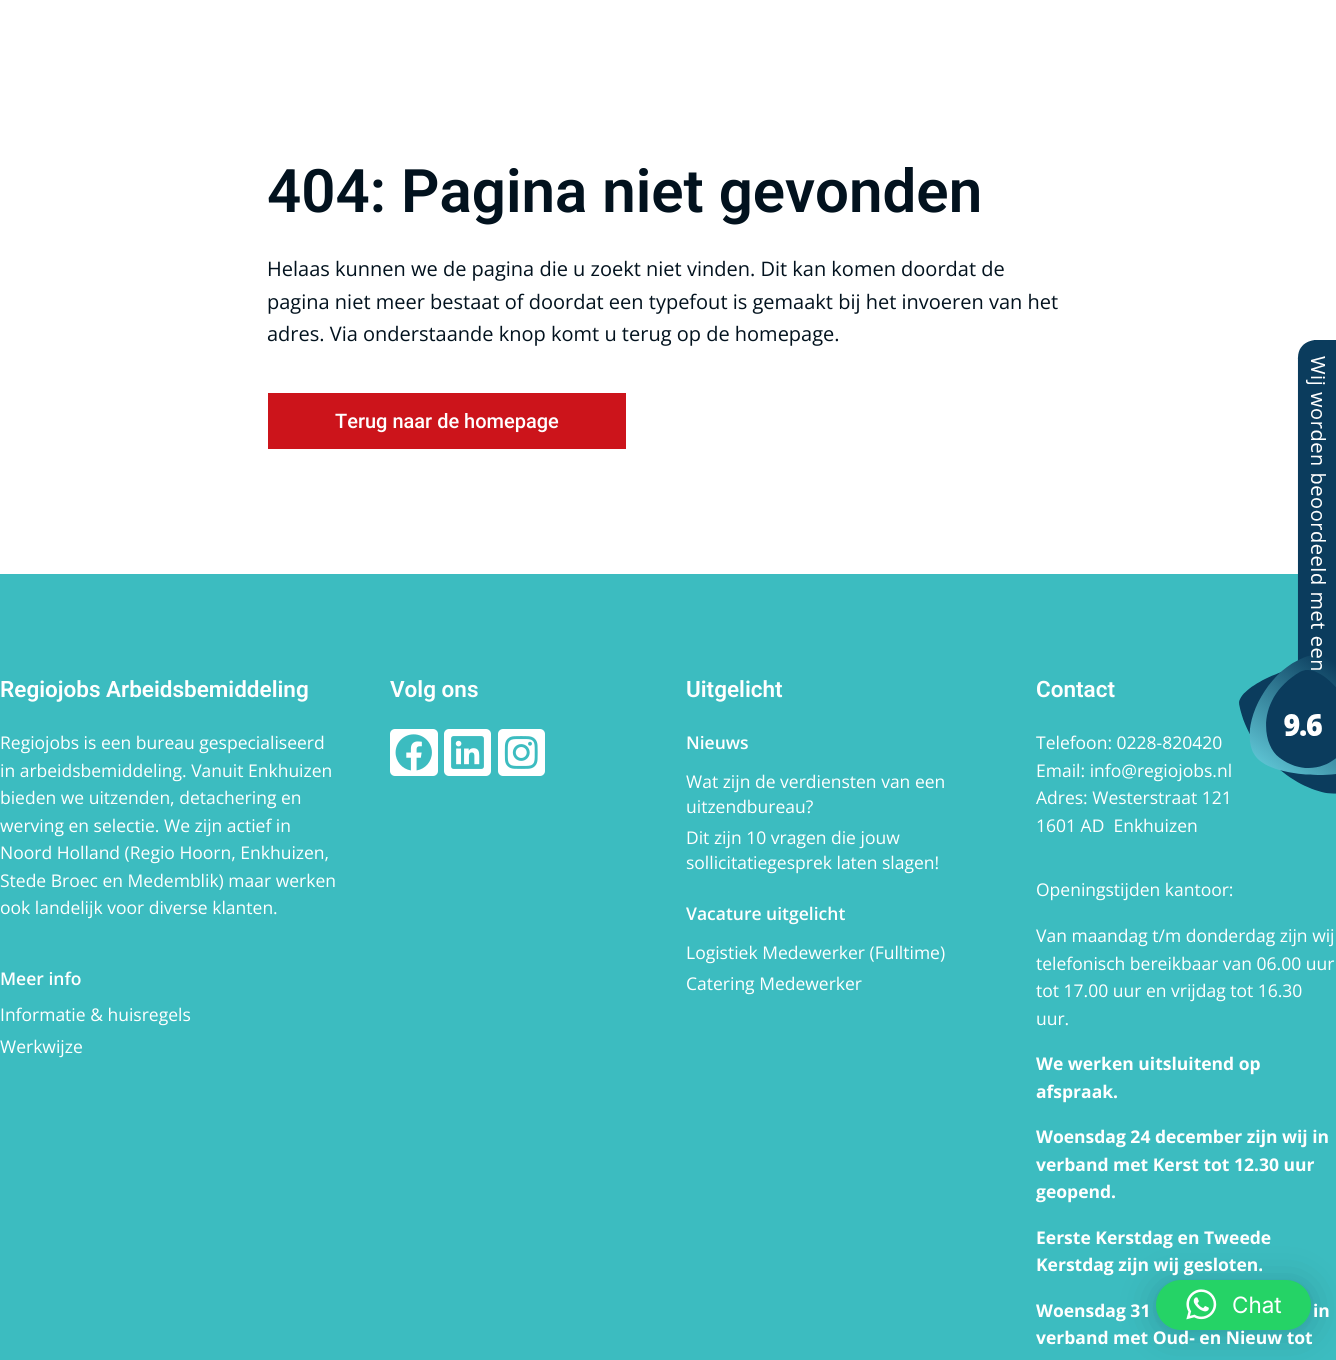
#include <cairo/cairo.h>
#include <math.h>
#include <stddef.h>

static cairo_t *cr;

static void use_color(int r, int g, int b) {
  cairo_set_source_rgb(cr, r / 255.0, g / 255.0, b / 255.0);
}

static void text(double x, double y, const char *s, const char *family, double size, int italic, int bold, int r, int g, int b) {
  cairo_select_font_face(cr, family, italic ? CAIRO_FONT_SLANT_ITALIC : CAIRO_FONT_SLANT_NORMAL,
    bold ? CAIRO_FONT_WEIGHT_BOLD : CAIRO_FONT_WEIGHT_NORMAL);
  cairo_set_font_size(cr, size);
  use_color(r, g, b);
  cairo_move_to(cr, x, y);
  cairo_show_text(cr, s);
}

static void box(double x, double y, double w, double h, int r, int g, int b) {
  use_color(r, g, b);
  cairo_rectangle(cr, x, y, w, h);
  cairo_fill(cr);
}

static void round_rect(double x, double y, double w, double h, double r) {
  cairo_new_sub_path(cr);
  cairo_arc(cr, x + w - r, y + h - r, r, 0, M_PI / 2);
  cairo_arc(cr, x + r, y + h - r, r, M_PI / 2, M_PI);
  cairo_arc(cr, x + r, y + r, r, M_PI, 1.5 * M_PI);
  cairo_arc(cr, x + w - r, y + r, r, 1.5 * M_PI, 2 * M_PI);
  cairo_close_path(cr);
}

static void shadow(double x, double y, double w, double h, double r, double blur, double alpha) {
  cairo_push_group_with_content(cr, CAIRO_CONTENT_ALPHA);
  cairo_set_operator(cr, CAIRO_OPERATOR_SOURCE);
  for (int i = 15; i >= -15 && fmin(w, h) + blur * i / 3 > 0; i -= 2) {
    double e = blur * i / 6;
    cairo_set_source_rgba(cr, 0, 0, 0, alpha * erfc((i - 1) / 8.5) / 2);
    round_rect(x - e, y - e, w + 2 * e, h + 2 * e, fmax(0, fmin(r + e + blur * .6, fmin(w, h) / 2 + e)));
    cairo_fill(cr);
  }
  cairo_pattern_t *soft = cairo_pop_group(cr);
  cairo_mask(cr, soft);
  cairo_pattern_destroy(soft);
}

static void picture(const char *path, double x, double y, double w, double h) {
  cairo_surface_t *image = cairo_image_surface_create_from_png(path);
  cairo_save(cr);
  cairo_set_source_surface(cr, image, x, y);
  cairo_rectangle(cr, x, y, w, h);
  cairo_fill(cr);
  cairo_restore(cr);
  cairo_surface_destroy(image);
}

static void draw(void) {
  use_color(255, 255, 255);
  cairo_paint(cr);
  box(268, 393, 358, 56, 204, 20, 27);
  box(0, 574, 1336, 786, 60, 188, 192);
  picture("img_01.png", 1239, 340, 97, 454);
  use_color(255, 255, 255);
  round_rect(390, 729, 48, 47, 5);
  cairo_fill(cr);
  picture("img_02.png", 395, 734, 37, 37);
  round_rect(444, 729, 47, 47, 5);
  cairo_fill(cr);
  picture("img_03.png", 451, 736, 33, 33);
  round_rect(498, 729, 47, 47, 5);
  cairo_fill(cr);
  picture("img_04.png", 504, 736, 34, 33);
  use_color(0, 0, 0);
  shadow(1156, 1283, 155, 50, 25, 20, 0.16);
  shadow(1156, 1281, 155, 50, 25, 4, 0.06);
  use_color(37, 211, 102);
  round_rect(1156, 1280, 155, 50, 25);
  cairo_fill(cr);
  picture("img_05.png", 1186, 1289, 31, 31);
  text(267, 212, "404: Pagina niet gevonden", "Roboto SemiBold", 60, 0, 0, 2, 18, 30);
  text(267, 276, "Helaas kunnen we de pagina die u zoekt niet vinden. Dit kan komen doordat de", "Open Sans", 20, 0, 0, 2, 18, 30);
  text(267, 309, "pagina niet meer bestaat of doordat een typefout is gemaakt bij het invoeren van het", "Open Sans", 20, 0, 0, 2, 18, 30);
  text(267, 341, "adres. Via onderstaande knop komt u terug op de homepage.", "Open Sans", 20, 0, 0, 2, 18, 30);
  text(335, 428, "Terug naar de homepage", "Roboto Medium", 20, 0, 0, 255, 255, 255);
  text(0, 697, "Regiojobs Arbeidsbemiddeling", "Roboto SemiBold", 22.5, 0, 0, 255, 255, 255);
  text(0, 749, "Regiojobs is een bureau gespecialiseerd", "Open Sans", 17.5, 0, 0, 255, 255, 255);
  text(0, 777, "in arbeidsbemiddeling. Vanuit Enkhuizen", "Open Sans", 17.5, 0, 0, 255, 255, 255);
  text(0, 804, "bieden we uitzenden, detachering en", "Open Sans", 17.5, 0, 0, 255, 255, 255);
  text(0, 832, "werving en selectie. We zijn actief in", "Open Sans", 17.5, 0, 0, 255, 255, 255);
  text(0, 859, "Noord Holland (Regio Hoorn, Enkhuizen,", "Open Sans", 17.5, 0, 0, 255, 255, 255);
  text(0, 887, "Stede Broec en Medemblik) maar werken", "Open Sans", 17.5, 0, 0, 255, 255, 255);
  text(0, 914, "ook landelijk voor diverse klanten.", "Open Sans", 17.5, 0, 0, 255, 255, 255);
  text(0, 985, "Meer info", "Open Sans SemiBold", 17.5, 0, 0, 255, 255, 255);
  text(0, 1021, "Informatie & huisregels", "Open Sans", 17.5, 0, 0, 255, 255, 255);
  text(0, 1053, "Werkwijze", "Open Sans", 17.5, 0, 0, 255, 255, 255);
  text(390, 697, "Volg ons", "Roboto SemiBold", 22.5, 0, 0, 255, 255, 255);
  text(686, 697, "Uitgelicht", "Roboto SemiBold", 22.5, 0, 0, 255, 255, 255);
  text(686, 749, "Nieuws", "Open Sans SemiBold", 17.5, 0, 0, 255, 255, 255);
  text(686, 788, "Wat zijn de verdiensten van een", "Open Sans", 17.5, 0, 0, 255, 255, 255);
  text(686, 813, "uitzendbureau?", "Open Sans", 17.5, 0, 0, 255, 255, 255);
  text(686, 844, "Dit zijn 10 vragen die jouw", "Open Sans", 17.5, 0, 0, 255, 255, 255);
  text(686, 869, "sollicitatiegesprek laten slagen!", "Open Sans", 17.5, 0, 0, 255, 255, 255);
  text(686, 920, "Vacature uitgelicht", "Open Sans SemiBold", 17.5, 0, 0, 255, 255, 255);
  text(686, 959, "Logistiek Medewerker (Fulltime)", "Open Sans", 17.5, 0, 0, 255, 255, 255);
  text(686, 990, "Catering Medewerker", "Open Sans", 17.5, 0, 0, 255, 255, 255);
  text(1036, 697, "Contact", "Roboto SemiBold", 22.5, 0, 0, 255, 255, 255);
  text(1036, 749, "Telefoon: 0228-820420", "Open Sans", 17.5, 0, 0, 255, 255, 255);
  text(1036, 777, "Email: info@regiojobs.nl", "Open Sans", 17.5, 0, 0, 255, 255, 255);
  text(1036, 804, "Adres: Westerstraat 121", "Open Sans", 17.5, 0, 0, 255, 255, 255);
  text(1036, 832, "1601 AD  Enkhuizen", "Open Sans", 17.5, 0, 0, 255, 255, 255);
  text(1036, 896, "Openingstijden kantoor:", "Open Sans", 17.5, 0, 0, 255, 255, 255);
  text(1036, 942, "Van maandag t/m donderdag zijn wij", "Open Sans", 17.5, 0, 0, 255, 255, 255);
  text(1036, 970, "telefonisch bereikbaar van 06.00 uur", "Open Sans", 17.5, 0, 0, 255, 255, 255);
  text(1036, 997, "tot 17.00 uur en vrijdag tot 16.30", "Open Sans", 17.5, 0, 0, 255, 255, 255);
  text(1036, 1025, "uur.", "Open Sans", 17.5, 0, 0, 255, 255, 255);
  text(1036, 1070, "We werken uitsluitend op", "Open Sans", 17.5, 0, 1, 255, 255, 255);
  text(1036, 1098, "afspraak.", "Open Sans", 17.5, 0, 1, 255, 255, 255);
  text(1036, 1143, "Woensdag 24 december zijn wij in", "Open Sans", 17.5, 0, 1, 255, 255, 255);
  text(1036, 1171, "verband met Kerst tot 12.30 uur", "Open Sans", 17.5, 0, 1, 255, 255, 255);
  text(1036, 1198, "geopend.", "Open Sans", 17.5, 0, 1, 255, 255, 255);
  text(1036, 1244, "Eerste Kerstdag en Tweede", "Open Sans", 17.5, 0, 1, 255, 255, 255);
  text(1036, 1271, "Kerstdag zijn wij gesloten.", "Open Sans", 17.5, 0, 1, 255, 255, 255);
  text(1036, 1317, "Woensdag 31", "Open Sans", 17.5, 0, 1, 255, 255, 255);
  text(1313, 1317, "in", "Open Sans", 17.5, 0, 1, 255, 255, 255);
  text(1036, 1344, "verband met Oud- en Nieuw tot", "Open Sans", 17.5, 0, 1, 255, 255, 255);
  text(1232, 1313, "Chat", "Inter", 22.5, 0, 0, 255, 255, 255);
}

int main(void) {
  cairo_surface_t *surface = cairo_image_surface_create(CAIRO_FORMAT_RGB24, 1336, 1360);
  cr = cairo_create(surface);
  cairo_font_options_t *options = cairo_font_options_create();
  cairo_font_options_set_hint_metrics(options, CAIRO_HINT_METRICS_OFF);
  cairo_font_options_set_hint_style(options, CAIRO_HINT_STYLE_NONE);
  cairo_set_font_options(cr, options);
  cairo_set_miter_limit(cr, 4);
  draw();
  cairo_surface_write_to_png(surface, "out.png");
  cairo_font_options_destroy(options);
  cairo_destroy(cr);
  cairo_surface_destroy(surface);
  return 0;
}
